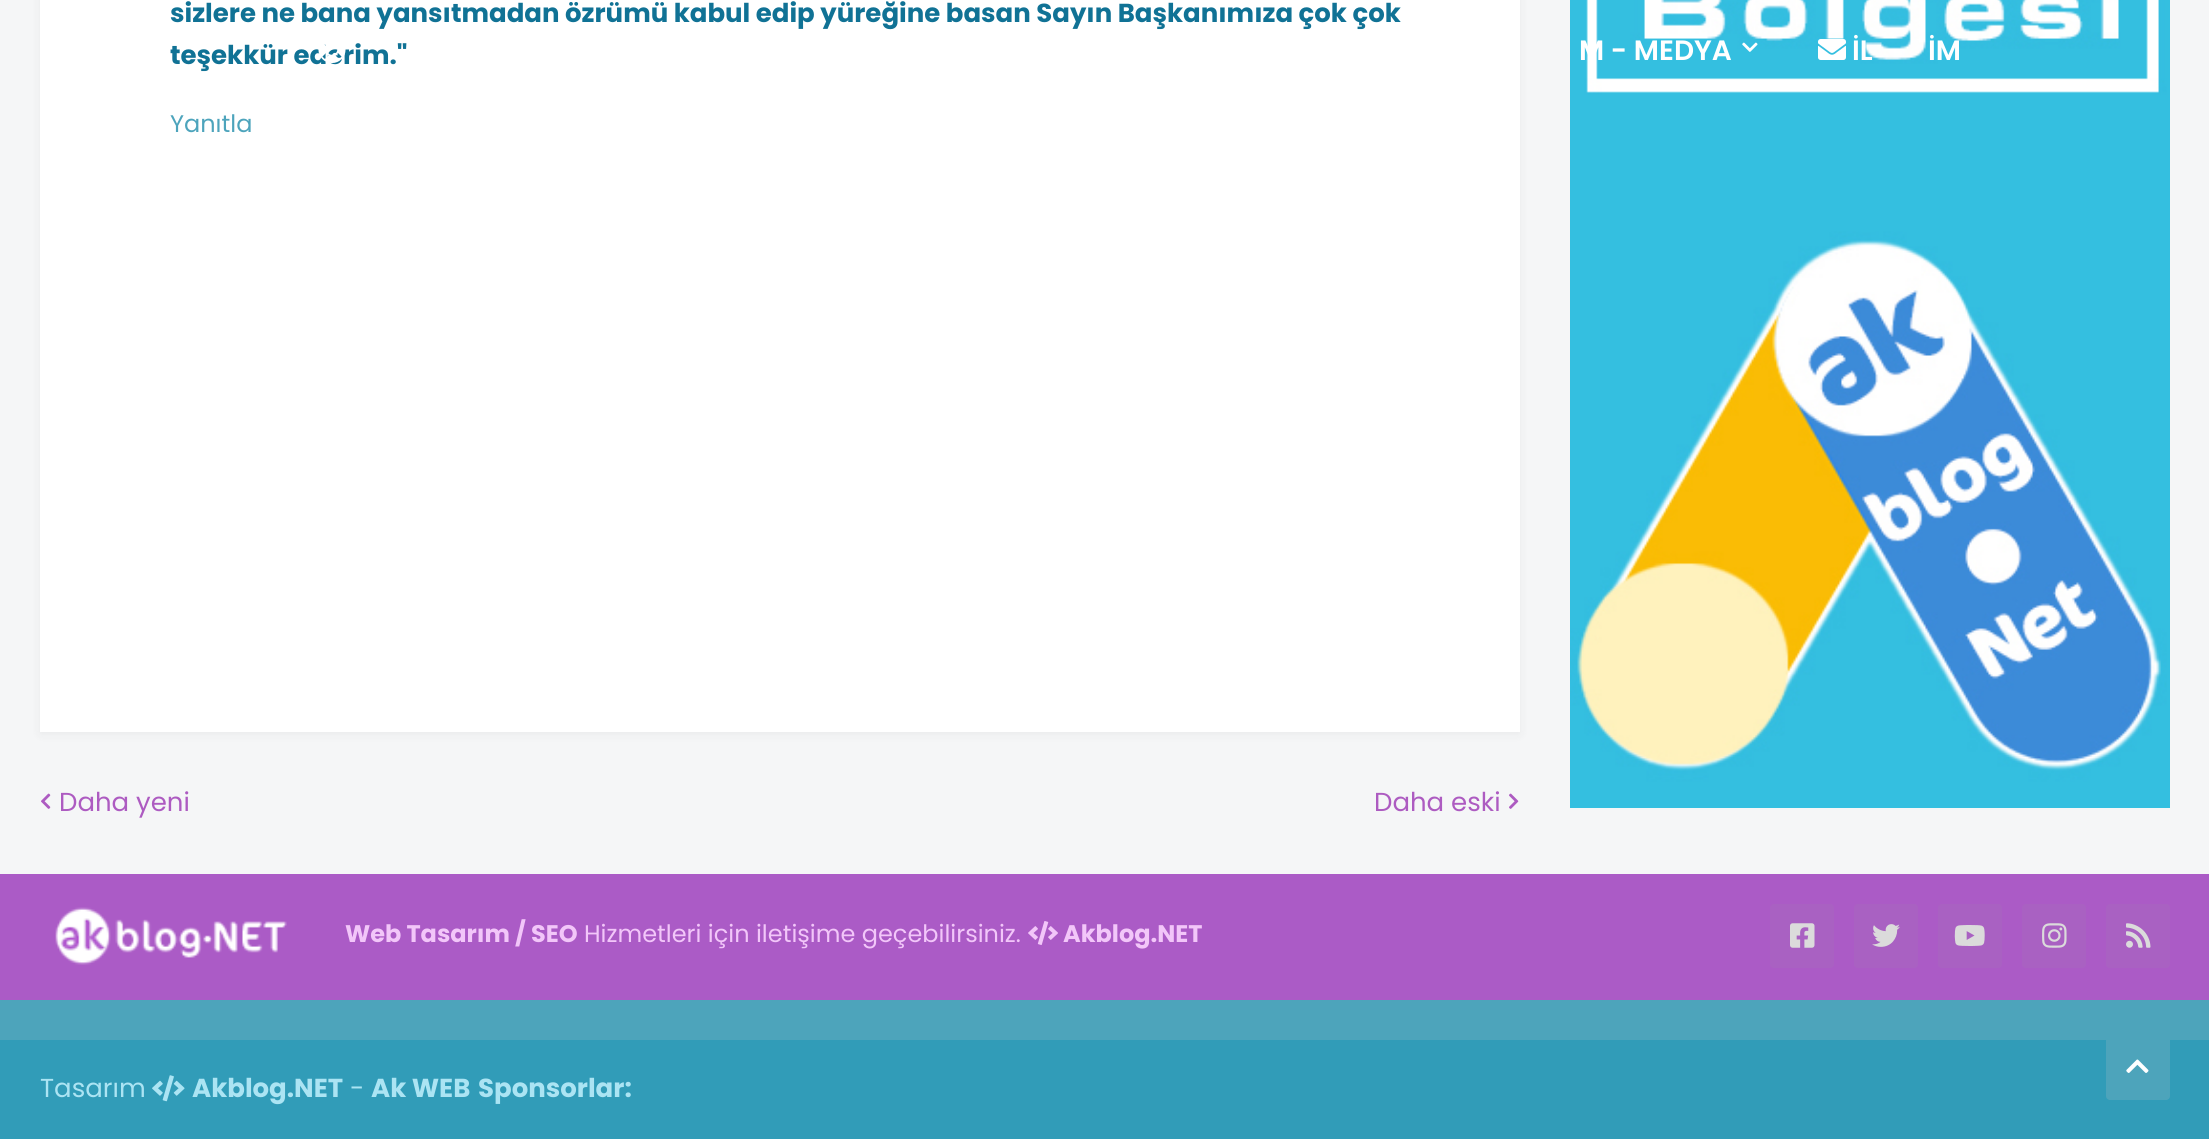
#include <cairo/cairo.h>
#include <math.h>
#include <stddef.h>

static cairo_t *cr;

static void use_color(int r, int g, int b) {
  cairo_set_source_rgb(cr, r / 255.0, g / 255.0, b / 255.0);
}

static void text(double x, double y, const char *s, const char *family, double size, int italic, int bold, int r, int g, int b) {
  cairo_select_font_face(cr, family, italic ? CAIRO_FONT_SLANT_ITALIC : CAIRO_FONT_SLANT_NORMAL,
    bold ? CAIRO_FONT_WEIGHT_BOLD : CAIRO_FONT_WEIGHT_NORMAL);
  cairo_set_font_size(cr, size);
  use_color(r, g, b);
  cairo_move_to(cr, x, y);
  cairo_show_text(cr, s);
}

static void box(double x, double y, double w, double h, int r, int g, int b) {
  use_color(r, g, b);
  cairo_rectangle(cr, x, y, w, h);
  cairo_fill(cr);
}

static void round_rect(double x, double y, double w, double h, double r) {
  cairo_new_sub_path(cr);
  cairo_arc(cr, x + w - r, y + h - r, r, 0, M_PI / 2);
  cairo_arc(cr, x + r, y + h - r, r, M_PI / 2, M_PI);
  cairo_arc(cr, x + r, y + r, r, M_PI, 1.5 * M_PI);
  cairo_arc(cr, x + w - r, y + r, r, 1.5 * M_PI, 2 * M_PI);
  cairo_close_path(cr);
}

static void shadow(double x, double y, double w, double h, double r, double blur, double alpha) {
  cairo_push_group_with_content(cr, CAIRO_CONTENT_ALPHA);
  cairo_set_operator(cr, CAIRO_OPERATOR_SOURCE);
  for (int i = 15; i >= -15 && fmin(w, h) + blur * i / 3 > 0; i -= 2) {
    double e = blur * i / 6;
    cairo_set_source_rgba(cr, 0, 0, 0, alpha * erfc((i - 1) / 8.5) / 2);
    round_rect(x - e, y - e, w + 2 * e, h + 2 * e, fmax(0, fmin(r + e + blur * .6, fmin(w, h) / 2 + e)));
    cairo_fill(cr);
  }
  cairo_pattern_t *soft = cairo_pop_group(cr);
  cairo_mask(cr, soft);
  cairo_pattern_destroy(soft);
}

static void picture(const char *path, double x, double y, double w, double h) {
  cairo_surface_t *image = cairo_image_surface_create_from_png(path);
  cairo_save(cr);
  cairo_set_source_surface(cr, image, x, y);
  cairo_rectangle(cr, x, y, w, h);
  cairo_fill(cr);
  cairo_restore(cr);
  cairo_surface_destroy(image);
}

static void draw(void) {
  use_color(245, 246, 247);
  cairo_paint(cr);
  use_color(0, 0, 0);
  shadow(40, -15, 1480, 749, 0, 5, 0.05);
  box(40, 0, 1480, 732, 255, 255, 255);
  picture("img_01.png", 41, 793, 10, 16);
  picture("img_02.png", 1509, 793, 10, 16);
  picture("img_03.png", 1570, 0, 600, 808);
  picture("img_05.png", 1742, 42, 16, 10);
  picture("img_06.png", 1818, 39, 28, 21);
  box(0, 1000, 2209, 40, 77, 164, 187);
  box(0, 874, 2209, 126, 171, 91, 198);
  picture("img_07.png", 55, 907, 232, 58);
  picture("img_08.png", 1028, 921, 30, 24);
  use_color(169, 97, 194);
  round_rect(1770, 904, 64, 64, 4);
  cairo_fill(cr);
  picture("img_09.png", 1790, 923, 25, 25);
  round_rect(1854, 904, 64, 64, 4);
  cairo_fill(cr);
  picture("img_10.png", 1872, 924, 28, 23);
  round_rect(1938, 904, 64, 64, 4);
  cairo_fill(cr);
  picture("img_11.png", 1954, 925, 31, 21);
  round_rect(2022, 904, 64, 64, 4);
  cairo_fill(cr);
  picture("img_12.png", 2042, 923, 25, 25);
  round_rect(2106, 904, 64, 64, 4);
  cairo_fill(cr);
  picture("img_13.png", 2126, 923, 25, 25);
  box(0, 1040, 2209, 99, 49, 156, 184);
  picture("img_14.png", 152, 1075, 33, 27);
  use_color(77, 164, 187);
  round_rect(2106, 1036, 64, 64, 4);
  cairo_fill(cr);
  picture("img_15.png", 2126, 1059, 23, 14);
  text(170, 22, "sizlere ne bana yansıtmadan özrümü kabul edip yüreğine basan Sayın Başkanımıza çok çok", "Poppins", 26, 0, 1, 16, 114, 149);
  text(170, 64, "teşekkür ederim.\"", "Poppins", 26, 0, 1, 16, 114, 149);
  text(170, 132, "Yanıtla", "Poppins", 24, 0, 0, 77, 164, 188);
  text(59, 811, "Daha yeni", "Poppins", 26, 0, 0, 173, 91, 193);
  text(1374, 811, "Daha eski", "Poppins", 26, 0, 0, 173, 91, 193);
  picture("img_04.png", 318, 44, 28, 19);
  text(1579, 60, "M - MEDYA", "Poppins SemiBold", 28, 0, 0, 255, 255, 255);
  text(1852, 60, "İL", "Poppins SemiBold", 28, 0, 0, 255, 255, 255);
  text(1928, 60, "İM", "Poppins SemiBold", 28, 0, 0, 255, 255, 255);
  text(345, 942, "Web Tasarım / SEO", "Poppins", 24, 0, 1, 242, 198, 249);
  text(584, 942, "Hizmetleri için iletişime geçebilirsiniz.", "Poppins", 24, 0, 0, 242, 198, 249);
  text(1063, 942, "Akblog.NET", "Poppins", 24, 0, 1, 242, 198, 249);
  text(40, 1097, "Tasarım", "Poppins", 26, 0, 0, 171, 228, 243);
  text(192, 1097, "Akblog.NET", "Poppins", 26, 0, 1, 171, 228, 243);
  text(350, 1097, "-", "Poppins", 26, 0, 0, 171, 228, 243);
  text(371, 1097, "Ak WEB", "Poppins", 26, 0, 1, 171, 228, 243);
  text(478, 1097, "Sponsorlar:", "Poppins", 26, 0, 1, 171, 228, 243);
}

int main(void) {
  cairo_surface_t *surface = cairo_image_surface_create(CAIRO_FORMAT_RGB24, 2209, 1139);
  cr = cairo_create(surface);
  cairo_font_options_t *options = cairo_font_options_create();
  cairo_font_options_set_hint_metrics(options, CAIRO_HINT_METRICS_OFF);
  cairo_font_options_set_hint_style(options, CAIRO_HINT_STYLE_NONE);
  cairo_set_font_options(cr, options);
  cairo_set_miter_limit(cr, 4);
  draw();
  cairo_surface_write_to_png(surface, "out.png");
  cairo_font_options_destroy(options);
  cairo_destroy(cr);
  cairo_surface_destroy(surface);
  return 0;
}
